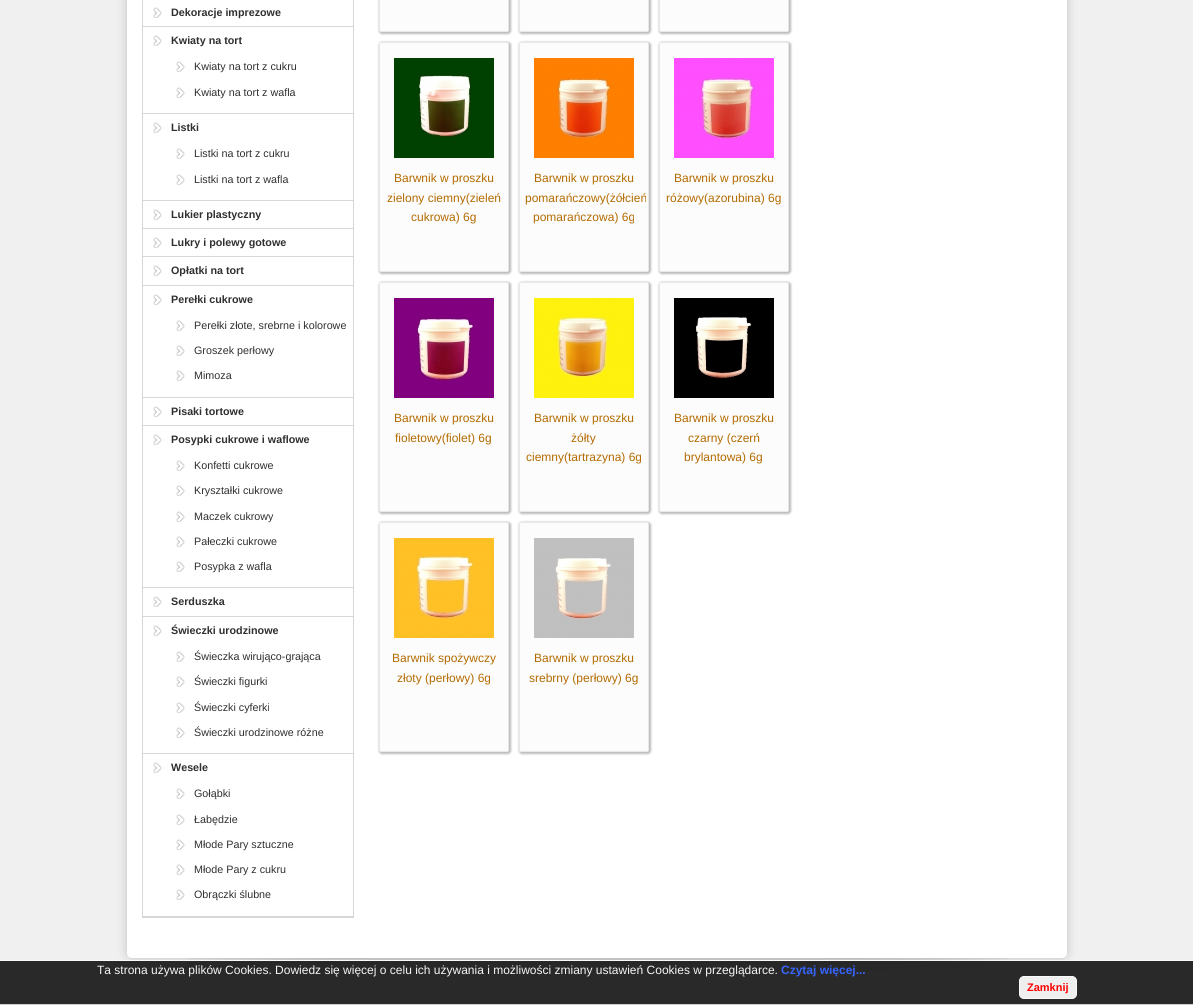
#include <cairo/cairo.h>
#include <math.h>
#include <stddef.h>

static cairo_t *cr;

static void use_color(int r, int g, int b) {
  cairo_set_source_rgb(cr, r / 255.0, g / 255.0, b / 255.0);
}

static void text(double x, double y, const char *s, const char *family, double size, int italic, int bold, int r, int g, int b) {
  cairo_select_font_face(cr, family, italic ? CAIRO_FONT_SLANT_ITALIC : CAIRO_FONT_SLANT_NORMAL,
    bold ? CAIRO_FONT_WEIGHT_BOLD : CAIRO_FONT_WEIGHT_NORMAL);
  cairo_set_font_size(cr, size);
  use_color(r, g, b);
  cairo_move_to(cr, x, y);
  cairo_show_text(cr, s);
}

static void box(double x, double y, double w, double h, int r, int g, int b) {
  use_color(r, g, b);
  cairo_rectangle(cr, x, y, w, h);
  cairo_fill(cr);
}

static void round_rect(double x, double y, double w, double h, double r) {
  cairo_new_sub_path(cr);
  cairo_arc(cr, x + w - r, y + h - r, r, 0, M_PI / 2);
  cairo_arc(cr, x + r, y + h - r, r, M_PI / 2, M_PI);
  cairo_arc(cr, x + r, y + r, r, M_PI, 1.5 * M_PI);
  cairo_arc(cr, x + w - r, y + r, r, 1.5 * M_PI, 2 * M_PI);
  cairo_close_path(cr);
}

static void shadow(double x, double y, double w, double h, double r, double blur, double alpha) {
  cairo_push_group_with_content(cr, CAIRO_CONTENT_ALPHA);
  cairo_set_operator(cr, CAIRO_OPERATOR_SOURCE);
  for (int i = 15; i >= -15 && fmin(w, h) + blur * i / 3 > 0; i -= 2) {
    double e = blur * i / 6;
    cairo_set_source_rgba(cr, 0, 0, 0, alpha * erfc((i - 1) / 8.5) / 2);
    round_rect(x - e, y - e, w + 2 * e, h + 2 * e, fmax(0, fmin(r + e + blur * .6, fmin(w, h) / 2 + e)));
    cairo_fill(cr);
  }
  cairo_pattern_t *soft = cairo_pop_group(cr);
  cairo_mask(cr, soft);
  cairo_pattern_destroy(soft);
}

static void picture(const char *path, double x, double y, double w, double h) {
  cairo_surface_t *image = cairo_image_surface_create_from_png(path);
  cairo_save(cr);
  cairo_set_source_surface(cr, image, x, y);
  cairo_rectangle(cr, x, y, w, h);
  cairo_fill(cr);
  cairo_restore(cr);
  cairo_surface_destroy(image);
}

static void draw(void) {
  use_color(240, 240, 240);
  cairo_paint(cr);
  use_color(0, 0, 0);
  shadow(127, -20, 940, 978, 5, 5, 0.2);
  use_color(255, 255, 255);
  round_rect(127, -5, 940, 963, 5);
  cairo_fill(cr);
  cairo_rectangle(cr, 142.5, -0.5, 211, 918);
  use_color(215, 215, 215);
  cairo_set_line_width(cr, 1);
  cairo_stroke(cr);
  box(143, 26, 210, 1, 215, 215, 215);
  picture("img_01.png", 153, 7, 9, 11);
  box(143, 113, 210, 1, 215, 215, 215);
  picture("img_01.png", 153, 35, 9, 11);
  picture("img_01.png", 176, 61, 9, 11);
  picture("img_01.png", 176, 87, 9, 11);
  box(143, 200, 210, 1, 215, 215, 215);
  picture("img_01.png", 153, 122, 9, 11);
  picture("img_01.png", 176, 148, 9, 11);
  picture("img_01.png", 176, 174, 9, 11);
  box(143, 228, 210, 1, 215, 215, 215);
  picture("img_01.png", 153, 209, 9, 11);
  box(143, 256, 210, 1, 215, 215, 215);
  picture("img_01.png", 153, 237, 9, 11);
  box(143, 285, 210, 1, 215, 215, 215);
  picture("img_01.png", 153, 265, 9, 11);
  box(143, 397, 210, 1, 215, 215, 215);
  picture("img_01.png", 153, 294, 9, 11);
  picture("img_01.png", 176, 320, 9, 11);
  picture("img_01.png", 176, 345, 9, 11);
  picture("img_01.png", 176, 370, 9, 11);
  box(143, 425, 210, 1, 215, 215, 215);
  picture("img_01.png", 153, 406, 9, 11);
  box(143, 587, 210, 1, 215, 215, 215);
  picture("img_01.png", 153, 434, 9, 11);
  picture("img_01.png", 176, 460, 9, 11);
  picture("img_01.png", 176, 485, 9, 11);
  picture("img_01.png", 176, 511, 9, 11);
  picture("img_01.png", 176, 536, 9, 11);
  picture("img_01.png", 176, 561, 9, 11);
  box(143, 616, 210, 1, 215, 215, 215);
  picture("img_01.png", 153, 596, 9, 11);
  box(143, 753, 210, 1, 215, 215, 215);
  picture("img_01.png", 153, 625, 9, 11);
  picture("img_01.png", 176, 651, 9, 11);
  picture("img_01.png", 176, 676, 9, 11);
  picture("img_01.png", 176, 702, 9, 11);
  picture("img_01.png", 176, 727, 9, 11);
  box(143, 916, 210, 1, 215, 215, 215);
  picture("img_01.png", 153, 762, 9, 11);
  picture("img_01.png", 176, 788, 9, 11);
  picture("img_01.png", 176, 814, 9, 11);
  picture("img_01.png", 176, 839, 9, 11);
  picture("img_01.png", 176, 864, 9, 11);
  picture("img_01.png", 176, 889, 9, 11);
  use_color(120, 120, 120);
  shadow(379, -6, 132, 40, 3, 1, 0.5);
  use_color(252, 252, 252);
  round_rect(379.5, -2.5, 129, 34, 1.5);
  cairo_fill_preserve(cr);
  use_color(232, 232, 232);
  cairo_stroke(cr);
  use_color(120, 120, 120);
  shadow(519, -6, 132, 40, 3, 1, 0.5);
  use_color(252, 252, 252);
  round_rect(519.5, -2.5, 129, 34, 1.5);
  cairo_fill_preserve(cr);
  use_color(232, 232, 232);
  cairo_stroke(cr);
  use_color(120, 120, 120);
  shadow(659, -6, 132, 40, 3, 1, 0.5);
  use_color(252, 252, 252);
  round_rect(659.5, -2.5, 129, 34, 1.5);
  cairo_fill_preserve(cr);
  use_color(232, 232, 232);
  cairo_stroke(cr);
  use_color(120, 120, 120);
  shadow(379, 42, 132, 232, 3, 1, 0.5);
  use_color(252, 252, 252);
  round_rect(379.5, 42.5, 129, 229, 1.5);
  cairo_fill_preserve(cr);
  use_color(232, 232, 232);
  cairo_stroke(cr);
  picture("img_02.png", 394, 58, 100, 100);
  use_color(120, 120, 120);
  shadow(519, 42, 132, 232, 3, 1, 0.5);
  use_color(252, 252, 252);
  round_rect(519.5, 42.5, 129, 229, 1.5);
  cairo_fill_preserve(cr);
  use_color(232, 232, 232);
  cairo_stroke(cr);
  picture("img_03.png", 534, 58, 100, 100);
  use_color(120, 120, 120);
  shadow(659, 42, 132, 232, 3, 1, 0.5);
  use_color(252, 252, 252);
  round_rect(659.5, 42.5, 129, 229, 1.5);
  cairo_fill_preserve(cr);
  use_color(232, 232, 232);
  cairo_stroke(cr);
  picture("img_04.png", 674, 58, 100, 100);
  use_color(120, 120, 120);
  shadow(379, 282, 132, 232, 3, 1, 0.5);
  use_color(252, 252, 252);
  round_rect(379.5, 282.5, 129, 229, 1.5);
  cairo_fill_preserve(cr);
  use_color(232, 232, 232);
  cairo_stroke(cr);
  picture("img_05.png", 394, 298, 100, 100);
  use_color(120, 120, 120);
  shadow(519, 282, 132, 232, 3, 1, 0.5);
  use_color(252, 252, 252);
  round_rect(519.5, 282.5, 129, 229, 1.5);
  cairo_fill_preserve(cr);
  use_color(232, 232, 232);
  cairo_stroke(cr);
  picture("img_06.png", 534, 298, 100, 100);
  use_color(120, 120, 120);
  shadow(659, 282, 132, 232, 3, 1, 0.5);
  use_color(252, 252, 252);
  round_rect(659.5, 282.5, 129, 229, 1.5);
  cairo_fill_preserve(cr);
  use_color(232, 232, 232);
  cairo_stroke(cr);
  picture("img_07.png", 674, 298, 100, 100);
  use_color(120, 120, 120);
  shadow(379, 522, 132, 232, 3, 1, 0.5);
  use_color(252, 252, 252);
  round_rect(379.5, 522.5, 129, 229, 1.5);
  cairo_fill_preserve(cr);
  use_color(232, 232, 232);
  cairo_stroke(cr);
  picture("img_08.png", 394, 538, 100, 100);
  use_color(120, 120, 120);
  shadow(519, 522, 132, 232, 3, 1, 0.5);
  use_color(252, 252, 252);
  round_rect(519.5, 522.5, 129, 229, 1.5);
  cairo_fill_preserve(cr);
  use_color(232, 232, 232);
  cairo_stroke(cr);
  picture("img_09.png", 534, 538, 100, 100);
  picture("img_10.png", 186, 958, 822, 17);
  cairo_set_source_rgba(cr, 0.114, 0.114, 0.114, 0.94);
  cairo_rectangle(cr, 0, 961, 1193, 43);
  cairo_fill(cr);
  box(0, 960, 1193, 1, 250, 250, 250);
  box(0, 1004, 1193, 1, 206, 206, 206);
  use_color(239, 239, 239);
  round_rect(1019.5, 976.5, 57, 22, 4.5);
  cairo_fill_preserve(cr);
  use_color(250, 250, 250);
  cairo_stroke(cr);
  text(171, 16, "Dekoracje imprezowe", "Liberation Sans", 10.75, 0, 1, 47, 47, 47);
  text(171, 44, "Kwiaty na tort", "Liberation Sans", 10.75, 0, 1, 47, 47, 47);
  text(194, 70, "Kwiaty na tort z cukru", "Liberation Sans", 10.75, 0, 0, 47, 47, 47);
  text(194, 96, "Kwiaty na tort z wafla", "Liberation Sans", 10.75, 0, 0, 47, 47, 47);
  text(171, 131, "Listki", "Liberation Sans", 10.75, 0, 1, 47, 47, 47);
  text(194, 157, "Listki na tort z cukru", "Liberation Sans", 10.75, 0, 0, 47, 47, 47);
  text(194, 183, "Listki na tort z wafla", "Liberation Sans", 10.75, 0, 0, 47, 47, 47);
  text(171, 218, "Lukier plastyczny", "Liberation Sans", 10.75, 0, 1, 47, 47, 47);
  text(171, 246, "Lukry i polewy gotowe", "Liberation Sans", 10.75, 0, 1, 47, 47, 47);
  text(171, 274, "Opłatki na tort", "Liberation Sans", 10.75, 0, 1, 47, 47, 47);
  text(171, 303, "Perełki cukrowe", "Liberation Sans", 10.75, 0, 1, 47, 47, 47);
  text(194, 329, "Perełki złote, srebrne i kolorowe", "Liberation Sans", 10.75, 0, 0, 47, 47, 47);
  text(194, 354, "Groszek perłowy", "Liberation Sans", 10.75, 0, 0, 47, 47, 47);
  text(194, 379, "Mimoza", "Liberation Sans", 10.75, 0, 0, 47, 47, 47);
  text(171, 415, "Pisaki tortowe", "Liberation Sans", 10.75, 0, 1, 47, 47, 47);
  text(171, 443, "Posypki cukrowe i waflowe", "Liberation Sans", 10.75, 0, 1, 47, 47, 47);
  text(194, 469, "Konfetti cukrowe", "Liberation Sans", 10.75, 0, 0, 47, 47, 47);
  text(194, 494, "Kryształki cukrowe", "Liberation Sans", 10.75, 0, 0, 47, 47, 47);
  text(194, 520, "Maczek cukrowy", "Liberation Sans", 10.75, 0, 0, 47, 47, 47);
  text(194, 545, "Pałeczki cukrowe", "Liberation Sans", 10.75, 0, 0, 47, 47, 47);
  text(194, 570, "Posypka z wafla", "Liberation Sans", 10.75, 0, 0, 47, 47, 47);
  text(171, 605, "Serduszka", "Liberation Sans", 10.75, 0, 1, 47, 47, 47);
  text(171, 634, "Świeczki urodzinowe", "Liberation Sans", 10.75, 0, 1, 47, 47, 47);
  text(194, 660, "Świeczka wirująco-grająca", "Liberation Sans", 10.75, 0, 0, 47, 47, 47);
  text(194, 685, "Świeczki figurki", "Liberation Sans", 10.75, 0, 0, 47, 47, 47);
  text(194, 711, "Świeczki cyferki", "Liberation Sans", 10.75, 0, 0, 47, 47, 47);
  text(194, 736, "Świeczki urodzinowe różne", "Liberation Sans", 10.75, 0, 0, 47, 47, 47);
  text(171, 771, "Wesele", "Liberation Sans", 10.75, 0, 1, 47, 47, 47);
  text(194, 797, "Gołąbki", "Liberation Sans", 10.75, 0, 0, 47, 47, 47);
  text(194, 823, "Łabędzie", "Liberation Sans", 10.75, 0, 0, 47, 47, 47);
  text(194, 848, "Młode Pary sztuczne", "Liberation Sans", 10.75, 0, 0, 47, 47, 47);
  text(194, 873, "Młode Pary z cukru", "Liberation Sans", 10.75, 0, 0, 47, 47, 47);
  text(194, 898, "Obrączki ślubne", "Liberation Sans", 10.75, 0, 0, 47, 47, 47);
  text(394, 182, "Barwnik w proszku", "Liberation Sans", 12, 0, 0, 179, 107, 0);
  text(387, 202, "zielony ciemny(zieleń", "Liberation Sans", 12, 0, 0, 179, 107, 0);
  text(411, 221, "cukrowa) 6g", "Liberation Sans", 12, 0, 0, 179, 107, 0);
  text(534, 182, "Barwnik w proszku", "Liberation Sans", 12, 0, 0, 179, 107, 0);
  text(525, 202, "pomarańczowy(żółcień", "Liberation Sans", 12, 0, 0, 179, 107, 0);
  text(533, 221, "pomarańczowa) 6g", "Liberation Sans", 12, 0, 0, 179, 107, 0);
  text(674, 182, "Barwnik w proszku", "Liberation Sans", 12, 0, 0, 179, 107, 0);
  text(666, 202, "różowy(azorubina) 6g", "Liberation Sans", 12, 0, 0, 179, 107, 0);
  text(394, 422, "Barwnik w proszku", "Liberation Sans", 12, 0, 0, 179, 107, 0);
  text(395, 442, "fioletowy(fiolet) 6g", "Liberation Sans", 12, 0, 0, 179, 107, 0);
  text(534, 422, "Barwnik w proszku", "Liberation Sans", 12, 0, 0, 179, 107, 0);
  text(571, 442, "żółty", "Liberation Sans", 12, 0, 0, 179, 107, 0);
  text(526, 461, "ciemny(tartrazyna) 6g", "Liberation Sans", 12, 0, 0, 179, 107, 0);
  text(674, 422, "Barwnik w proszku", "Liberation Sans", 12, 0, 0, 179, 107, 0);
  text(688, 442, "czarny (czerń", "Liberation Sans", 12, 0, 0, 179, 107, 0);
  text(684, 461, "brylantowa) 6g", "Liberation Sans", 12, 0, 0, 179, 107, 0);
  text(392, 662, "Barwnik spożywczy", "Liberation Sans", 12, 0, 0, 179, 107, 0);
  text(397, 682, "złoty (perłowy) 6g", "Liberation Sans", 12, 0, 0, 179, 107, 0);
  text(534, 662, "Barwnik w proszku", "Liberation Sans", 12, 0, 0, 179, 107, 0);
  text(529, 682, "srebrny (perłowy) 6g", "Liberation Sans", 12, 0, 0, 179, 107, 0);
  text(97, 974, "Ta strona używa plików Cookies. Dowiedz się więcej o celu ich używania i możliwości zmiany ustawień Cookies w przeglądarce.", "Liberation Sans", 12, 0, 0, 245, 245, 245);
  text(781, 974, "Czytaj więcej...", "Liberation Sans", 12, 0, 1, 54, 101, 254);
  text(1027, 991, "Zamknij", "Liberation Sans", 11, 0, 1, 255, 0, 0);
}

int main(void) {
  cairo_surface_t *surface = cairo_image_surface_create(CAIRO_FORMAT_RGB24, 1193, 1005);
  cr = cairo_create(surface);
  cairo_font_options_t *options = cairo_font_options_create();
  cairo_font_options_set_hint_metrics(options, CAIRO_HINT_METRICS_OFF);
  cairo_font_options_set_hint_style(options, CAIRO_HINT_STYLE_NONE);
  cairo_set_font_options(cr, options);
  cairo_set_miter_limit(cr, 4);
  draw();
  cairo_surface_write_to_png(surface, "out.png");
  cairo_font_options_destroy(options);
  cairo_destroy(cr);
  cairo_surface_destroy(surface);
  return 0;
}
